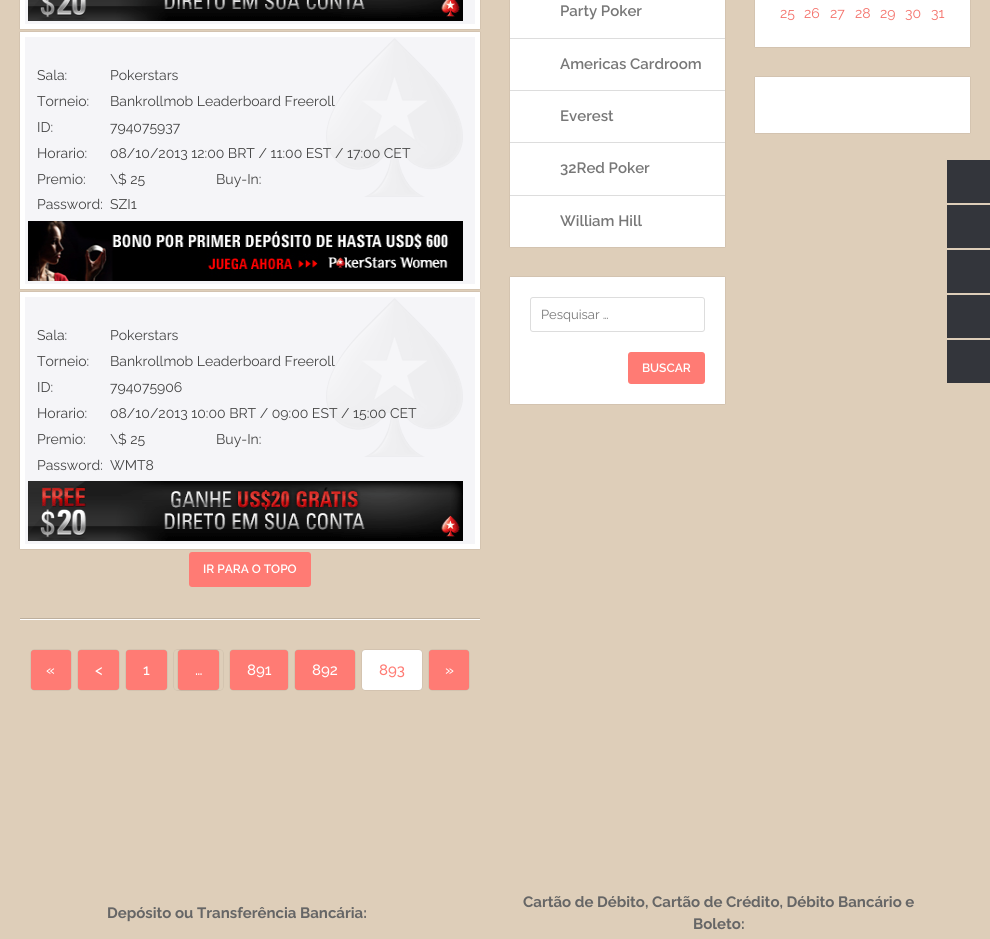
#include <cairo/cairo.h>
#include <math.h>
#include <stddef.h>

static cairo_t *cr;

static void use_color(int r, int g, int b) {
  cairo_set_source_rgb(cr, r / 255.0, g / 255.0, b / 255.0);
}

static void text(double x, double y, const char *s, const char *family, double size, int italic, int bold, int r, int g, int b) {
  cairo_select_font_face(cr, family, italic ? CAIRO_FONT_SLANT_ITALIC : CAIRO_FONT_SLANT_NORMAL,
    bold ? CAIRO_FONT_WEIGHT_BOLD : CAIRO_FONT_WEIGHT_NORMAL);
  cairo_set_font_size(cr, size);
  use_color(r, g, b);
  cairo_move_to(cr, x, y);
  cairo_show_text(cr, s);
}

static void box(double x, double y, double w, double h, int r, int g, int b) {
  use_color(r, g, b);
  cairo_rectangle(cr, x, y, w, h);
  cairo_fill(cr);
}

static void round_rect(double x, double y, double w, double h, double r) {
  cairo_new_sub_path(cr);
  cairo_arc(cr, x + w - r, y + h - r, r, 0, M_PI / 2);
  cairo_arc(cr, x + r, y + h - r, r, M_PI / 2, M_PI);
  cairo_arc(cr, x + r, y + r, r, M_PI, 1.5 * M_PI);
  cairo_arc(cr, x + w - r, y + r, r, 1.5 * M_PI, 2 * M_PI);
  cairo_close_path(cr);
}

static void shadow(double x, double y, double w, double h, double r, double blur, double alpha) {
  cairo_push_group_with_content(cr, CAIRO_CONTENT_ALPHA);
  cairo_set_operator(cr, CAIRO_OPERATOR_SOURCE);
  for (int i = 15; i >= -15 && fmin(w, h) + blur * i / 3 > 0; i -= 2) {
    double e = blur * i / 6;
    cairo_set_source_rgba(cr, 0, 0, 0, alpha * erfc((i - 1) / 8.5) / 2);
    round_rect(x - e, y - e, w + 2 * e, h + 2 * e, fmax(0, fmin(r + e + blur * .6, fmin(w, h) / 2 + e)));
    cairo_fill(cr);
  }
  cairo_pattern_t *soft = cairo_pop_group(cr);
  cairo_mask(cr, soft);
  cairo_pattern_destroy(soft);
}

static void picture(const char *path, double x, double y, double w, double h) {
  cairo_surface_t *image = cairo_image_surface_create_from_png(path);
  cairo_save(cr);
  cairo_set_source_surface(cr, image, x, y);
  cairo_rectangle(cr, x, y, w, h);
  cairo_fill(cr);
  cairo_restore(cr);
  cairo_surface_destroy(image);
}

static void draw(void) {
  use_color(222, 206, 185);
  cairo_paint(cr);
  use_color(0, 0, 0);
  shadow(510, -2, 215, 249, 0, 0.5, 0.2);
  box(510, 0, 215, 247, 255, 255, 255);
  box(510, 38, 215, 1, 221, 221, 221);
  box(510, 90, 215, 1, 221, 221, 221);
  box(510, 142, 215, 1, 221, 221, 221);
  box(510, 195, 215, 1, 221, 221, 221);
  use_color(0, 0, 0);
  shadow(510, 277, 215, 127, 0, 0.5, 0.2);
  box(510, 277, 215, 127, 255, 255, 255);
  round_rect(530.5, 297.5, 174, 34, 2.5);
  use_color(221, 221, 221);
  cairo_set_line_width(cr, 1);
  cairo_stroke(cr);
  use_color(255, 123, 116);
  round_rect(628, 352, 77, 32, 3);
  cairo_fill(cr);
  use_color(0, 0, 0);
  shadow(755, -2, 215, 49, 0, 0.5, 0.2);
  box(755, 0, 215, 47, 255, 255, 255);
  use_color(0, 0, 0);
  shadow(755, 77, 215, 56, 0, 0.5, 0.2);
  box(755, 77, 215, 56, 255, 255, 255);
  use_color(0, 0, 0);
  shadow(20, -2, 460, 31, 0, 0.5, 0.2);
  box(20, 0, 460, 29, 255, 255, 255);
  box(25, 0, 450, 24, 245, 245, 248);
  picture("img_01.png", 28, 0, 435, 21);
  use_color(0, 0, 0);
  shadow(20, 32, 460, 257, 0, 0.5, 0.2);
  box(20, 32, 460, 257, 255, 255, 255);
  box(25, 37, 450, 247, 245, 245, 248);
  picture("img_02.png", 326, 38, 137, 159);
  picture("img_03.png", 28, 221, 435, 60);
  use_color(0, 0, 0);
  shadow(20, 292, 460, 257, 0, 0.5, 0.2);
  box(20, 292, 460, 257, 255, 255, 255);
  box(25, 297, 450, 247, 245, 245, 248);
  picture("img_02.png", 326, 298, 137, 159);
  picture("img_04.png", 28, 481, 435, 60);
  use_color(255, 123, 116);
  round_rect(189, 552, 122, 35, 3);
  cairo_fill(cr);
  box(20, 618, 460, 1, 189, 175, 157);
  box(20, 619, 460, 1, 255, 255, 255);
  use_color(0, 0, 0);
  shadow(31, 650, 40, 40, 3, 0.5, 0.2);
  use_color(255, 123, 116);
  round_rect(31, 650, 40, 40, 3);
  cairo_fill(cr);
  use_color(0, 0, 0);
  shadow(78, 650, 41, 40, 3, 0.5, 0.2);
  use_color(255, 123, 116);
  round_rect(78, 650, 41, 40, 3);
  cairo_fill(cr);
  use_color(0, 0, 0);
  shadow(126, 650, 41, 40, 3, 0.5, 0.2);
  use_color(255, 123, 116);
  round_rect(126, 650, 41, 40, 3);
  cairo_fill(cr);
  cairo_save(cr);
  cairo_set_fill_rule(cr, CAIRO_FILL_RULE_EVEN_ODD);
  cairo_new_path(cr);
  cairo_move_to(cr, 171, 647);
  cairo_line_to(cr, 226, 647);
  cairo_line_to(cr, 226, 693);
  cairo_line_to(cr, 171, 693);
  cairo_close_path(cr);
  cairo_move_to(cr, 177, 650);
  cairo_line_to(cr, 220, 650);
  cairo_curve_to(cr, 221.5, 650, 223, 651.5, 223, 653);
  cairo_line_to(cr, 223, 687);
  cairo_curve_to(cr, 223, 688.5, 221.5, 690, 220, 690);
  cairo_line_to(cr, 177, 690);
  cairo_curve_to(cr, 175.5, 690, 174, 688.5, 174, 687);
  cairo_line_to(cr, 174, 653);
  cairo_curve_to(cr, 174, 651.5, 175.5, 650, 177, 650);
  cairo_close_path(cr);
  cairo_clip(cr);
  use_color(0, 0, 0);
  shadow(174, 650, 49, 40, 3, 0.5, 0.2);
  cairo_restore(cr);
  use_color(0, 0, 0);
  shadow(178, 650, 41, 40, 3, 0.5, 0.2);
  use_color(255, 123, 116);
  round_rect(178, 650, 41, 40, 3);
  cairo_fill(cr);
  use_color(0, 0, 0);
  shadow(230, 650, 58, 40, 3, 0.5, 0.2);
  use_color(255, 123, 116);
  round_rect(230, 650, 58, 40, 3);
  cairo_fill(cr);
  use_color(0, 0, 0);
  shadow(295, 650, 60, 40, 3, 0.5, 0.2);
  use_color(255, 123, 116);
  round_rect(295, 650, 60, 40, 3);
  cairo_fill(cr);
  use_color(0, 0, 0);
  shadow(362, 650, 60, 40, 3, 0.5, 0.2);
  use_color(255, 255, 255);
  round_rect(362, 650, 60, 40, 3);
  cairo_fill(cr);
  use_color(0, 0, 0);
  shadow(429, 650, 40, 40, 3, 0.5, 0.2);
  use_color(255, 123, 116);
  round_rect(429, 650, 40, 40, 3);
  cairo_fill(cr);
  box(947, 160, 43, 43, 51, 53, 59);
  box(947, 205, 43, 43, 51, 53, 59);
  box(947, 250, 43, 43, 51, 53, 59);
  box(947, 295, 43, 43, 51, 53, 59);
  box(947, 340, 43, 43, 51, 53, 59);
  text(560, 16, "Party Poker", "Raleway SemiBold", 15, 0, 0, 119, 119, 119);
  text(560, 69, "Americas Cardroom", "Raleway SemiBold", 15, 0, 0, 119, 119, 119);
  text(560, 121, "Everest", "Raleway SemiBold", 15, 0, 0, 119, 119, 119);
  text(560, 173, "32Red Poker", "Raleway SemiBold", 15, 0, 0, 119, 119, 119);
  text(560, 226, "William Hill", "Raleway SemiBold", 15, 0, 0, 119, 119, 119);
  text(541, 319, "Pesquisar …", "Raleway", 13, 0, 0, 119, 119, 119);
  text(642, 372, "BUSCAR", "Raleway SemiBold", 12, 0, 0, 255, 255, 255);
  text(780, 18, "25", "Raleway", 14, 0, 0, 244, 113, 106);
  text(804, 18, "26", "Raleway", 14, 0, 0, 244, 113, 106);
  text(830, 18, "27", "Raleway", 14, 0, 0, 244, 113, 106);
  text(855, 18, "28", "Raleway", 14, 0, 0, 244, 113, 106);
  text(880, 18, "29", "Raleway", 14, 0, 0, 244, 113, 106);
  text(905, 18, "30", "Raleway", 14, 0, 0, 244, 113, 106);
  text(931, 18, "31", "Raleway", 14, 0, 0, 244, 113, 106);
  text(37, 80, "Sala:", "Raleway", 14, 0, 0, 68, 68, 68);
  text(110, 80, "Pokerstars", "Raleway", 14, 0, 0, 68, 68, 68);
  text(37, 106, "Torneio:", "Raleway", 14, 0, 0, 68, 68, 68);
  text(110, 106, "Bankrollmob Leaderboard Freeroll", "Raleway", 14, 0, 0, 68, 68, 68);
  text(37, 132, "ID:", "Raleway", 14, 0, 0, 68, 68, 68);
  text(110, 132, "794075937", "Raleway", 14, 0, 0, 68, 68, 68);
  text(37, 158, "Horario:", "Raleway", 14, 0, 0, 68, 68, 68);
  text(110, 158, "08/10/2013 12:00 BRT / 11:00 EST / 17:00 CET", "Raleway", 14, 0, 0, 68, 68, 68);
  text(37, 184, "Premio:", "Raleway", 14, 0, 0, 68, 68, 68);
  text(110, 184, "\\$ 25", "Raleway", 14, 0, 0, 68, 68, 68);
  text(216, 184, "Buy-In:", "Raleway", 14, 0, 0, 68, 68, 68);
  text(37, 209, "Password:", "Raleway", 14, 0, 0, 68, 68, 68);
  text(110, 209, "SZI1", "Raleway", 14, 0, 0, 68, 68, 68);
  text(37, 340, "Sala:", "Raleway", 14, 0, 0, 68, 68, 68);
  text(110, 340, "Pokerstars", "Raleway", 14, 0, 0, 68, 68, 68);
  text(37, 366, "Torneio:", "Raleway", 14, 0, 0, 68, 68, 68);
  text(110, 366, "Bankrollmob Leaderboard Freeroll", "Raleway", 14, 0, 0, 68, 68, 68);
  text(37, 392, "ID:", "Raleway", 14, 0, 0, 68, 68, 68);
  text(110, 392, "794075906", "Raleway", 14, 0, 0, 68, 68, 68);
  text(37, 418, "Horario:", "Raleway", 14, 0, 0, 68, 68, 68);
  text(110, 418, "08/10/2013 10:00 BRT / 09:00 EST / 15:00 CET", "Raleway", 14, 0, 0, 68, 68, 68);
  text(37, 444, "Premio:", "Raleway", 14, 0, 0, 68, 68, 68);
  text(110, 444, "\\$ 25", "Raleway", 14, 0, 0, 68, 68, 68);
  text(216, 444, "Buy-In:", "Raleway", 14, 0, 0, 68, 68, 68);
  text(37, 470, "Password:", "Raleway", 14, 0, 0, 68, 68, 68);
  text(110, 470, "WMT8", "Raleway", 14, 0, 0, 68, 68, 68);
  text(203, 573, "IR PARA O TOPO", "Raleway SemiBold", 12, 0, 0, 255, 255, 255);
  text(46, 675, "«", "Raleway Medium", 15, 0, 0, 255, 255, 255);
  text(95, 675, "<", "Raleway Medium", 15, 0, 0, 255, 255, 255);
  text(143, 675, "1", "Raleway Medium", 15, 0, 0, 255, 255, 255);
  text(195, 675, "…", "Raleway Medium", 15, 0, 0, 255, 255, 255);
  text(247, 675, "891", "Raleway Medium", 15, 0, 0, 255, 255, 255);
  text(312, 675, "892", "Raleway Medium", 15, 0, 0, 255, 255, 255);
  text(379, 675, "893", "Raleway Medium", 15, 0, 0, 255, 123, 116);
  text(445, 675, "»", "Raleway Medium", 15, 0, 0, 255, 255, 255);
  text(107, 918, "Depósito ou Transferência Bancária:", "Raleway", 15, 0, 1, 102, 102, 102);
  text(523, 907, "Cartão de Débito, Cartão de Crédito, Débito Bancário e", "Raleway", 15, 0, 1, 102, 102, 102);
  text(693, 929, "Boleto:", "Raleway", 15, 0, 1, 102, 102, 102);
}

int main(void) {
  cairo_surface_t *surface = cairo_image_surface_create(CAIRO_FORMAT_RGB24, 990, 939);
  cr = cairo_create(surface);
  cairo_font_options_t *options = cairo_font_options_create();
  cairo_font_options_set_hint_metrics(options, CAIRO_HINT_METRICS_OFF);
  cairo_font_options_set_hint_style(options, CAIRO_HINT_STYLE_NONE);
  cairo_set_font_options(cr, options);
  cairo_set_miter_limit(cr, 4);
  draw();
  cairo_surface_write_to_png(surface, "out.png");
  cairo_font_options_destroy(options);
  cairo_destroy(cr);
  cairo_surface_destroy(surface);
  return 0;
}
